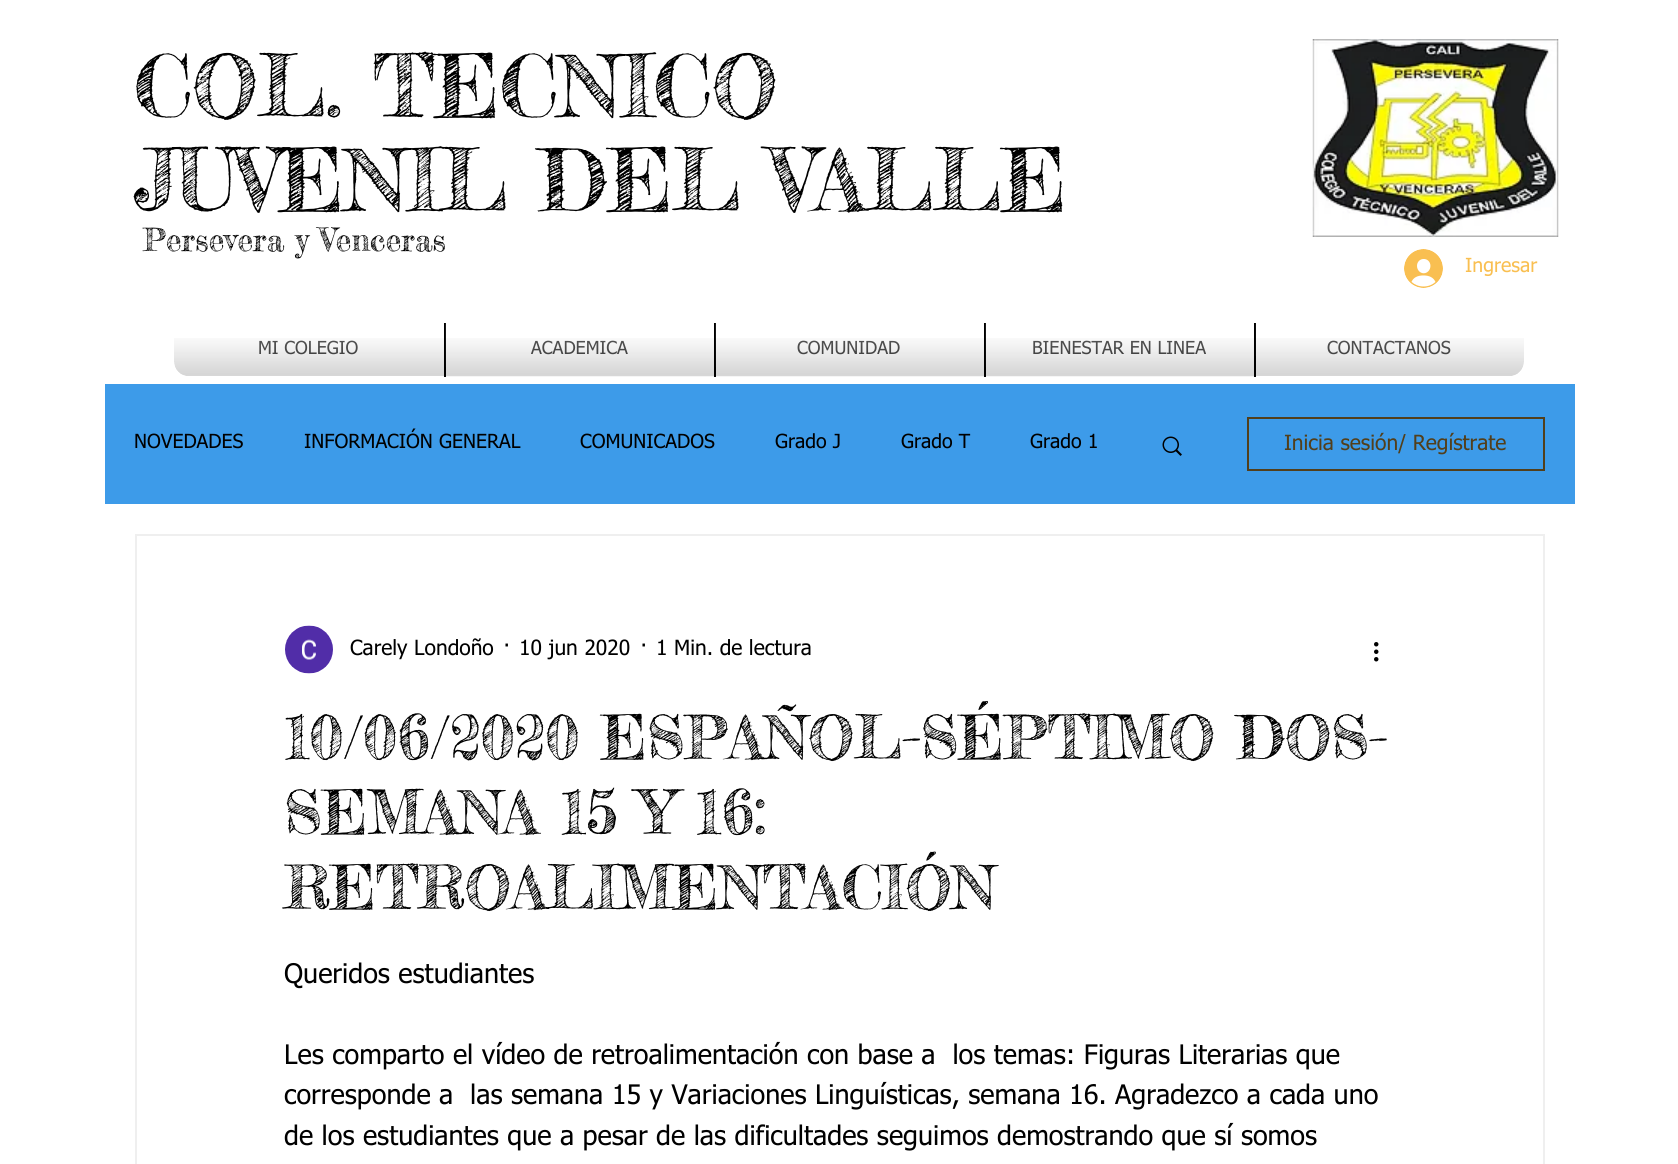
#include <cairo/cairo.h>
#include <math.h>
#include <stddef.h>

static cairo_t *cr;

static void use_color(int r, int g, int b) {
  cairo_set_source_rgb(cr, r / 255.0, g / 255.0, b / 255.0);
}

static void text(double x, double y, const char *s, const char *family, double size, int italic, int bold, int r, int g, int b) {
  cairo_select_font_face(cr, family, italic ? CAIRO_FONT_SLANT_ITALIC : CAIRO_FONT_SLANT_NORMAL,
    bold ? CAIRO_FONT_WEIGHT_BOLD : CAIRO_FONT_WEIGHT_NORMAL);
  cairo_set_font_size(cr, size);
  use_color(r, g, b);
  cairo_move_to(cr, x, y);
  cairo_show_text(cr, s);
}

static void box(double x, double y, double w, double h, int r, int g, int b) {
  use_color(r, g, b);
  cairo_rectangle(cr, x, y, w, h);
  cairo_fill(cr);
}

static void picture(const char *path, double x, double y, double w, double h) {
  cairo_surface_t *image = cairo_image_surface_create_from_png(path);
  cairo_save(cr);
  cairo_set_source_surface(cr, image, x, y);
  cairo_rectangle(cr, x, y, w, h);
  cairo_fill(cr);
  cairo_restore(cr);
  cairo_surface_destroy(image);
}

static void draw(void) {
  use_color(255, 255, 255);
  cairo_paint(cr);
  picture("img_01.png", 1312, 39, 247, 198);
  picture("img_02.png", 1404, 249, 39, 39);
  picture("img_03.png", 174, 362, 1350, 13);
  use_color(255, 255, 255);
  cairo_new_path(cr);
  cairo_move_to(cr, 189, 323);
  cairo_line_to(cr, 444, 323);
  cairo_line_to(cr, 444, 377);
  cairo_line_to(cr, 189, 377);
  cairo_curve_to(cr, 180.5, 377, 174, 370.5, 174, 362);
  cairo_line_to(cr, 174, 338);
  cairo_curve_to(cr, 174, 329.5, 180.5, 323, 189, 323);
  cairo_close_path(cr);
  cairo_fill(cr);
  box(446, 362, 268, 13, 255, 255, 255);
  box(444, 323, 2, 54, 0, 0, 0);
  box(716, 362, 268, 13, 255, 255, 255);
  box(714, 323, 2, 54, 0, 0, 0);
  box(986, 362, 268, 13, 255, 255, 255);
  box(984, 323, 2, 54, 0, 0, 0);
  use_color(255, 255, 255);
  cairo_new_path(cr);
  cairo_move_to(cr, 1254, 323);
  cairo_line_to(cr, 1509, 323);
  cairo_curve_to(cr, 1517.5, 323, 1524, 329.5, 1524, 338);
  cairo_line_to(cr, 1524, 362);
  cairo_curve_to(cr, 1524, 370.5, 1517.5, 377, 1509, 377);
  cairo_line_to(cr, 1254, 377);
  cairo_close_path(cr);
  cairo_fill(cr);
  box(1254, 323, 2, 54, 0, 0, 0);
  box(105, 384, 1470, 120, 61, 155, 233);
  picture("img_14.png", 1162, 436, 20, 20);
  cairo_rectangle(cr, 1248, 418, 296, 52);
  use_color(82, 63, 27);
  cairo_stroke(cr);
  cairo_rectangle(cr, 136, 535, 1408, 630);
  use_color(239, 239, 239);
  cairo_stroke(cr);
  picture("img_15.png", 285, 625, 48, 49);
  picture("img_16.png", 1374, 642, 5, 20);
  text(134, 117, "COL. TECNICO", "Fredericka the Great", 85.5, 0, 0, 0, 0, 0);
  text(134, 211, "JUVENIL DEL VALLE", "Fredericka the Great", 85.5, 0, 0, 0, 0, 0);
  text(143, 251, "Persevera y Venceras", "Fredericka the Great", 31.5, 0, 0, 0, 0, 0);
  text(1465, 272, "Ingresar", "tahoma", 19.5, 0, 0, 249, 191, 81);
  text(258, 354, "MI COLEGIO", "tahoma", 18, 0, 0, 56, 56, 56);
  picture("img_04.png", 259, 340, 99, 15);
  picture("img_05.png", 174, 338, 270, 38);
  text(531, 354, "ACADEMICA", "tahoma", 18, 0, 0, 56, 56, 56);
  picture("img_06.png", 445, 323, 183, 44);
  picture("img_07.png", 446, 338, 268, 39);
  text(797, 354, "COMUNIDAD", "tahoma", 18, 0, 0, 56, 56, 56);
  picture("img_08.png", 715, 323, 185, 44);
  picture("img_09.png", 716, 338, 268, 39);
  text(1032, 354, "BIENESTAR EN LINEA", "tahoma", 18, 0, 0, 56, 56, 56);
  picture("img_10.png", 985, 323, 221, 44);
  picture("img_11.png", 986, 338, 268, 39);
  text(1327, 354, "CONTACTANOS", "tahoma", 18, 0, 0, 56, 56, 56);
  picture("img_12.png", 1255, 323, 196, 33);
  picture("img_13.png", 1256, 338, 268, 38);
  text(134, 448, "NOVEDADES", "tahoma", 19.5, 0, 0, 0, 0, 0);
  text(304, 448, "INFORMACIÓN GENERAL", "tahoma", 19.5, 0, 0, 0, 0, 0);
  text(580, 448, "COMUNICADOS", "tahoma", 19.5, 0, 0, 0, 0, 0);
  text(775, 448, "Grado J", "tahoma", 19.5, 0, 0, 0, 0, 0);
  text(901, 448, "Grado T", "tahoma", 19.5, 0, 0, 0, 0, 0);
  text(1030, 448, "Grado 1", "tahoma", 19.5, 0, 0, 0, 0, 0);
  text(1284, 450, "Inicia sesión/ Regístrate", "tahoma", 21, 0, 0, 82, 63, 27);
  text(350, 655, "Carely Londoño", "tahoma", 21, 0, 0, 0, 0, 0);
  text(503, 655, "·", "tahoma", 21, 0, 0, 0, 0, 0);
  text(519, 655, "10 jun 2020", "tahoma", 21, 0, 0, 0, 0, 0);
  text(640, 655, "·", "tahoma", 21, 0, 0, 0, 0, 0);
  text(656, 655, "1 Min. de lectura", "tahoma", 21, 0, 0, 0, 0, 0);
  text(284, 759, "10/06/2020 ESPAÑOL-SÉPTIMO DOS-", "Fredericka the Great", 60, 0, 0, 0, 0, 0);
  text(284, 834, "SEMANA 15 Y 16:", "Fredericka the Great", 60, 0, 0, 0, 0, 0);
  text(284, 909, "RETROALIMENTACIÓN", "Fredericka the Great", 60, 0, 0, 0, 0, 0);
  text(284, 983, "Queridos estudiantes", "tahoma", 27, 0, 0, 0, 0, 0);
  text(284, 1064, "Les comparto el vídeo de retroalimentación con base a  los temas: Figuras Literarias que", "tahoma", 27, 0, 0, 0, 0, 0);
  text(284, 1104, "corresponde a  las semana 15 y Variaciones Linguísticas, semana 16. Agradezco a cada uno", "tahoma", 27, 0, 0, 0, 0, 0);
  text(284, 1145, "de los estudiantes que a pesar de las dificultades seguimos demostrando que sí somos", "tahoma", 27, 0, 0, 0, 0, 0);
}

int main(void) {
  cairo_surface_t *surface = cairo_image_surface_create(CAIRO_FORMAT_RGB24, 1678, 1164);
  cr = cairo_create(surface);
  cairo_font_options_t *options = cairo_font_options_create();
  cairo_font_options_set_hint_metrics(options, CAIRO_HINT_METRICS_OFF);
  cairo_font_options_set_hint_style(options, CAIRO_HINT_STYLE_NONE);
  cairo_set_font_options(cr, options);
  cairo_set_miter_limit(cr, 4);
  draw();
  cairo_surface_write_to_png(surface, "out.png");
  cairo_font_options_destroy(options);
  cairo_destroy(cr);
  cairo_surface_destroy(surface);
  return 0;
}
